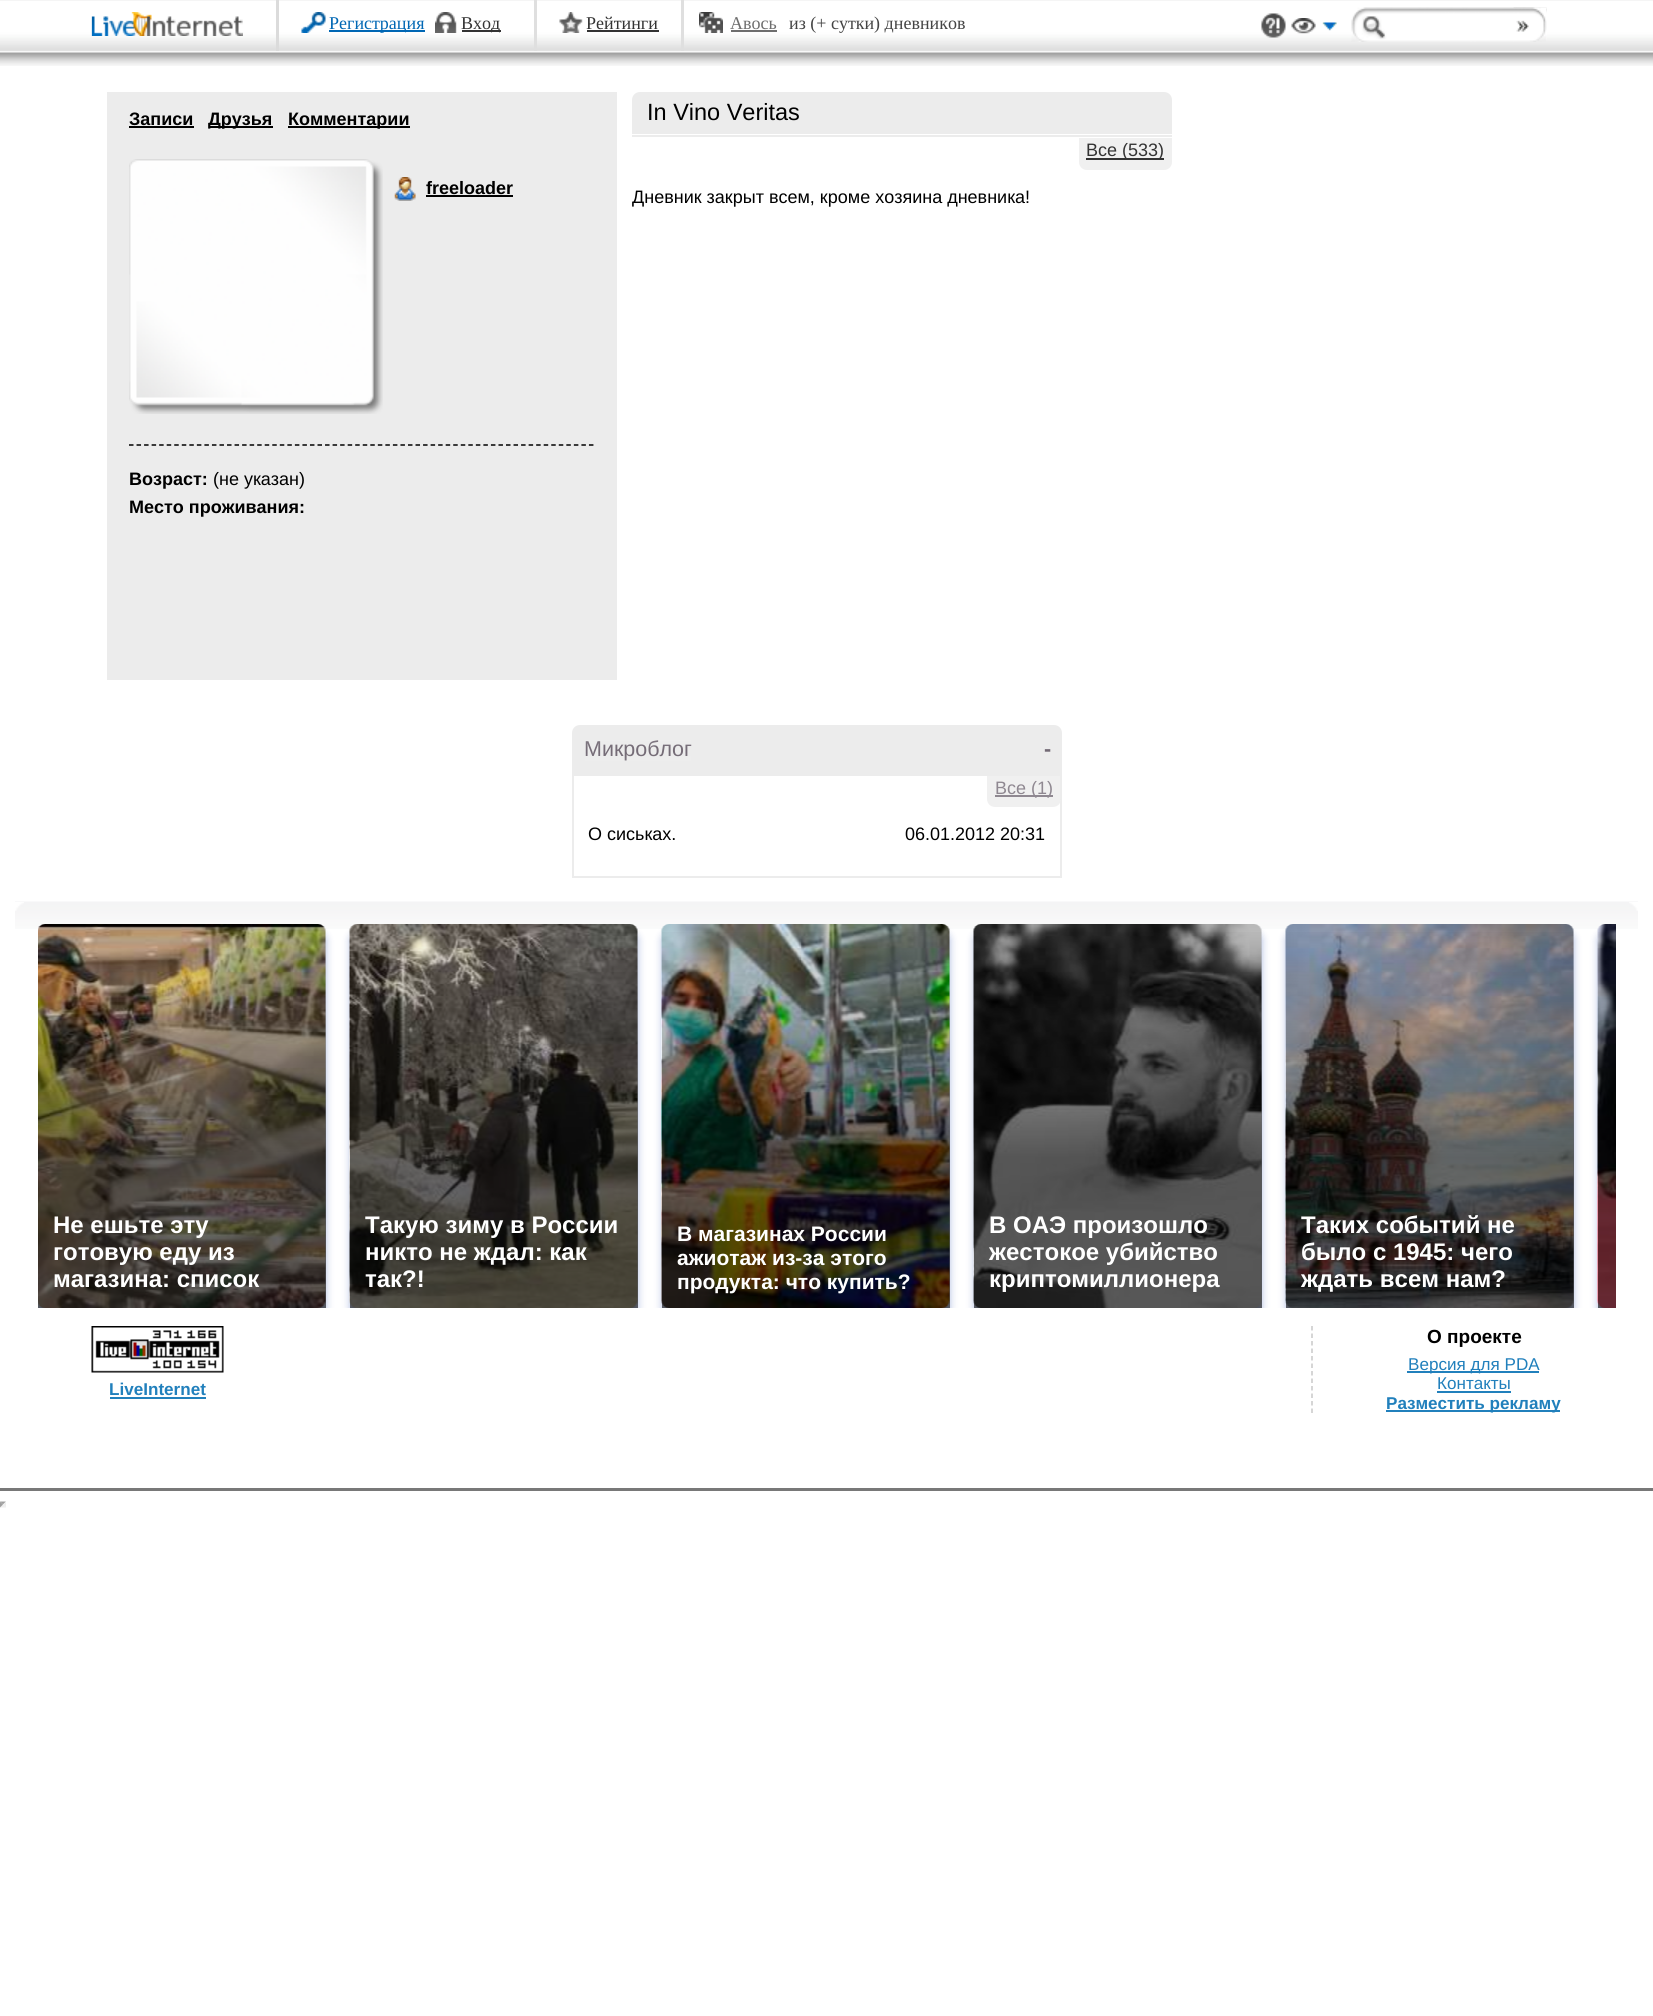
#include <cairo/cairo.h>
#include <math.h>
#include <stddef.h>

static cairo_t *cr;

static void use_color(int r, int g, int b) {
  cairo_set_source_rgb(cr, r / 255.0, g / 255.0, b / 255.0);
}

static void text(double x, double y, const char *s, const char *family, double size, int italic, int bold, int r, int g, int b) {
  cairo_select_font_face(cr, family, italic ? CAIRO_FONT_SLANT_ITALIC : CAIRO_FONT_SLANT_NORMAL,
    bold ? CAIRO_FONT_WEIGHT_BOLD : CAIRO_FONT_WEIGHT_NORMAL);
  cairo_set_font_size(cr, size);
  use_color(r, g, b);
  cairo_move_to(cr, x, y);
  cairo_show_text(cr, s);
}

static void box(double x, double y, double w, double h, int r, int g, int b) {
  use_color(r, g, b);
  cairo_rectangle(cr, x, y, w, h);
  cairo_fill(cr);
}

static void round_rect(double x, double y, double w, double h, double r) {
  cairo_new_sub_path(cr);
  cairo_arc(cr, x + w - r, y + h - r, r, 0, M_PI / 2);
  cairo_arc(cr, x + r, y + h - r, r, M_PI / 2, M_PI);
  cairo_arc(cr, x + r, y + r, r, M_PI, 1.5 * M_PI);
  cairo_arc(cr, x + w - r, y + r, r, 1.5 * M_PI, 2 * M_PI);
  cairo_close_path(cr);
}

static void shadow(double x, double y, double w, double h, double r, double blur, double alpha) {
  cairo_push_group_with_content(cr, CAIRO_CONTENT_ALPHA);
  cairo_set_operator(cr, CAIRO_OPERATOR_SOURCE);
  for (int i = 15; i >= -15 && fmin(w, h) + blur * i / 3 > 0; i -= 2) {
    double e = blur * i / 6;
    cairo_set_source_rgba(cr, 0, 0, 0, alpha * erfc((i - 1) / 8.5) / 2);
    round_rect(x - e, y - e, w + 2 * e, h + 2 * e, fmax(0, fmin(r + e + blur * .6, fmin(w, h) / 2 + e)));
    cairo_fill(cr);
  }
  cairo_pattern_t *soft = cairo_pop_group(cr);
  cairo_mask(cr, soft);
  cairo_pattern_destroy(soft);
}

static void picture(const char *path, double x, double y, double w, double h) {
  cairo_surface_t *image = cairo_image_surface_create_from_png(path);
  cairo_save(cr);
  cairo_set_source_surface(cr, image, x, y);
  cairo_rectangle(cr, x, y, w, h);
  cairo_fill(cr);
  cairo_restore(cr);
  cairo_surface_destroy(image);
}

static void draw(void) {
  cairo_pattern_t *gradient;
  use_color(255, 255, 255);
  cairo_paint(cr);
  picture("img_01.png", 0, 0, 1653, 66);
  picture("img_02.png", 91, 12, 152, 24);
  box(276, 0, 3, 51, 219, 219, 219);
  picture("img_03.png", 301, 12, 25, 21);
  box(329, 30, 96, 2, 0, 103, 180);
  picture("img_04.png", 435, 12, 22, 21);
  box(462, 30, 39, 2, 51, 51, 51);
  box(534, 0, 3, 51, 223, 223, 223);
  picture("img_05.png", 559, 12, 24, 21);
  box(587, 30, 72, 2, 51, 51, 51);
  box(681, 0, 3, 51, 223, 223, 223);
  picture("img_06.png", 699, 12, 24, 21);
  box(731, 30, 46, 2, 110, 110, 110);
  picture("img_07.png", 1261, 13, 25, 25);
  picture("img_08.png", 1291, 18, 46, 16);
  picture("img_09.png", 1351, 7, 196, 35);
  picture("img_10.png", 1513, 7, 34, 35);
  box(107, 92, 510, 588, 236, 236, 236);
  box(129, 126, 65, 2, 0, 0, 0);
  box(209, 126, 64, 2, 0, 0, 0);
  box(288, 126, 122, 2, 0, 0, 0);
  picture("img_11.png", 129, 159, 254, 255);
  picture("img_12.png", 394, 177, 22, 24);
  box(426, 195, 87, 2, 0, 0, 0);
  cairo_new_path(cr);
  cairo_move_to(cr, 129, 445);
  cairo_line_to(cr, 594, 445);
  cairo_set_line_width(cr, 1.5);
  cairo_set_dash(cr, (double[]){4.5, 3.04}, 2, 0);
  cairo_stroke(cr);
  use_color(236, 236, 236);
  cairo_new_path(cr);
  cairo_move_to(cr, 640, 92);
  cairo_line_to(cr, 1164, 92);
  cairo_curve_to(cr, 1168.5, 92, 1172, 95.5, 1172, 100);
  cairo_line_to(cr, 1172, 134);
  cairo_line_to(cr, 632, 134);
  cairo_line_to(cr, 632, 100);
  cairo_curve_to(cr, 632, 95.5, 635.5, 92, 640, 92);
  cairo_close_path(cr);
  cairo_fill(cr);
  box(632, 135, 540, 2, 236, 236, 236);
  use_color(240, 240, 240);
  cairo_new_path(cr);
  cairo_move_to(cr, 1079, 138);
  cairo_line_to(cr, 1172, 138);
  cairo_line_to(cr, 1172, 162);
  cairo_curve_to(cr, 1172, 166.5, 1168.5, 170, 1164, 170);
  cairo_line_to(cr, 1087, 170);
  cairo_curve_to(cr, 1082.5, 170, 1079, 166.5, 1079, 162);
  cairo_close_path(cr);
  cairo_fill(cr);
  box(1086, 158, 78, 2, 51, 51, 51);
  cairo_new_path(cr);
  cairo_move_to(cr, 580, 726);
  cairo_line_to(cr, 1054, 726);
  cairo_curve_to(cr, 1058, 726, 1061, 729, 1061, 733);
  cairo_line_to(cr, 1061, 877);
  cairo_line_to(cr, 573, 877);
  cairo_line_to(cr, 573, 733);
  cairo_curve_to(cr, 573, 729, 576, 726, 580, 726);
  cairo_close_path(cr);
  use_color(236, 236, 236);
  cairo_set_line_width(cr, 2);
  cairo_set_dash(cr, NULL, 0, 0);
  cairo_stroke(cr);
  cairo_new_path(cr);
  cairo_move_to(cr, 579, 726);
  cairo_line_to(cr, 1055, 726);
  cairo_curve_to(cr, 1058.5, 726, 1061, 728.5, 1061, 732);
  cairo_line_to(cr, 1061, 776);
  cairo_line_to(cr, 573, 776);
  cairo_line_to(cr, 573, 732);
  cairo_curve_to(cr, 573, 728.5, 575.5, 726, 579, 726);
  cairo_close_path(cr);
  cairo_fill(cr);
  cairo_set_source_rgba(cr, 0.925, 0.925, 0.925, 0.8);
  cairo_new_path(cr);
  cairo_move_to(cr, 987, 776);
  cairo_line_to(cr, 1061, 776);
  cairo_line_to(cr, 1061, 799);
  cairo_curve_to(cr, 1061, 803.5, 1057.5, 807, 1053, 807);
  cairo_line_to(cr, 995, 807);
  cairo_curve_to(cr, 990.5, 807, 987, 803.5, 987, 799);
  cairo_close_path(cr);
  cairo_fill(cr);
  box(995, 795, 58, 2, 143, 136, 145);
  box(0, 1488, 1653, 3, 120, 120, 120);
  picture("img_14.png", 15, 901, 1623, 28);
  picture("img_15.png", 15, 902, 9, 9);
  picture("img_16.png", 1629, 902, 9, 9);
  picture("img_23.png", 91, 1326, 133, 47);
  cairo_save(cr);
  cairo_rectangle(cr, 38, 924, 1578, 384);
  cairo_clip(cr);
  use_color(0, 41, 158);
  shadow(38, 932, 288, 384, 8, 4, 0.3);
  cairo_restore(cr);
  picture("img_17.png", 38, 924, 288, 384);
  gradient = cairo_pattern_create_linear(181, 924, 182, 1308);
  cairo_pattern_add_color_stop_rgba(gradient, 0, 0, 0, 0, 0);
  cairo_pattern_add_color_stop_rgba(gradient, 0.61, 0, 0, 0, 0.6);
  cairo_set_source(cr, gradient);
  cairo_pattern_destroy(gradient);
  cairo_rectangle(cr, 38, 932, 288, 376);
  cairo_fill(cr);
  cairo_save(cr);
  cairo_rectangle(cr, 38, 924, 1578, 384);
  cairo_clip(cr);
  use_color(0, 41, 158);
  shadow(350, 932, 288, 384, 8, 4, 0.3);
  cairo_restore(cr);
  picture("img_18.png", 349, 924, 289, 384);
  gradient = cairo_pattern_create_linear(494, 924, 494, 1308);
  cairo_pattern_add_color_stop_rgba(gradient, 0, 0, 0, 0, 0);
  cairo_pattern_add_color_stop_rgba(gradient, 0.61, 0, 0, 0, 0.6);
  cairo_set_source(cr, gradient);
  cairo_pattern_destroy(gradient);
  cairo_rectangle(cr, 350, 932, 288, 376);
  cairo_fill(cr);
  cairo_save(cr);
  cairo_rectangle(cr, 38, 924, 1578, 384);
  cairo_clip(cr);
  use_color(0, 41, 158);
  shadow(662, 932, 288, 384, 8, 4, 0.3);
  cairo_restore(cr);
  picture("img_19.png", 661, 924, 289, 384);
  gradient = cairo_pattern_create_linear(806, 924, 806, 1308);
  cairo_pattern_add_color_stop_rgba(gradient, 0, 0, 0, 0, 0);
  cairo_pattern_add_color_stop_rgba(gradient, 0.61, 0, 0, 0, 0.6);
  cairo_set_source(cr, gradient);
  cairo_pattern_destroy(gradient);
  cairo_rectangle(cr, 662, 932, 288, 376);
  cairo_fill(cr);
  cairo_save(cr);
  cairo_rectangle(cr, 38, 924, 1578, 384);
  cairo_clip(cr);
  use_color(0, 41, 158);
  shadow(974, 932, 288, 384, 8, 4, 0.3);
  cairo_restore(cr);
  picture("img_20.png", 973, 924, 289, 384);
  gradient = cairo_pattern_create_linear(1118, 924, 1118, 1308);
  cairo_pattern_add_color_stop_rgba(gradient, 0, 0, 0, 0, 0);
  cairo_pattern_add_color_stop_rgba(gradient, 0.61, 0, 0, 0, 0.6);
  cairo_set_source(cr, gradient);
  cairo_pattern_destroy(gradient);
  cairo_rectangle(cr, 974, 932, 288, 376);
  cairo_fill(cr);
  cairo_new_path(cr);
  cairo_move_to(cr, 1312, 1326);
  cairo_line_to(cr, 1312, 1413);
  use_color(201, 201, 201);
  cairo_set_line_width(cr, 1.5);
  cairo_set_dash(cr, (double[]){4.5, 3}, 2, 0);
  cairo_stroke(cr);
  cairo_save(cr);
  cairo_rectangle(cr, 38, 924, 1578, 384);
  cairo_clip(cr);
  use_color(0, 41, 158);
  shadow(1286, 932, 288, 384, 8, 4, 0.3);
  cairo_restore(cr);
  picture("img_21.png", 1285, 924, 289, 384);
  gradient = cairo_pattern_create_linear(1430, 924, 1430, 1308);
  cairo_pattern_add_color_stop_rgba(gradient, 0, 0, 0, 0, 0);
  cairo_pattern_add_color_stop_rgba(gradient, 0.61, 0, 0, 0, 0.6);
  cairo_set_source(cr, gradient);
  cairo_pattern_destroy(gradient);
  cairo_rectangle(cr, 1286, 932, 288, 376);
  cairo_fill(cr);
  cairo_save(cr);
  cairo_rectangle(cr, 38, 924, 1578, 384);
  cairo_clip(cr);
  use_color(0, 41, 158);
  shadow(1598, 932, 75, 384, 8, 4, 0.3);
  cairo_restore(cr);
  picture("img_22.png", 1597, 924, 19, 384);
  gradient = cairo_pattern_create_linear(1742, 924, 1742, 1308);
  cairo_pattern_add_color_stop_rgba(gradient, 0, 0, 0, 0, 0);
  cairo_pattern_add_color_stop_rgba(gradient, 0.61, 0, 0, 0, 0.6);
  cairo_set_source(cr, gradient);
  cairo_pattern_destroy(gradient);
  cairo_rectangle(cr, 1598, 932, 18, 376);
  cairo_fill(cr);
  box(110, 1397, 96, 2, 33, 128, 188);
  box(1407, 1371, 132, 2, 33, 128, 188);
  box(1437, 1391, 74, 2, 33, 128, 188);
  box(1386, 1410, 174, 2, 33, 128, 188);
  use_color(159, 159, 159);
  cairo_new_path(cr);
  cairo_move_to(cr, 0, 1501.5);
  cairo_line_to(cr, 6, 1501.5);
  cairo_line_to(cr, 3, 1504.5);
  cairo_close_path(cr);
  cairo_fill(cr);
  use_color(238, 238, 238);
  cairo_new_path(cr);
  cairo_move_to(cr, 6, 1501.5);
  cairo_line_to(cr, 6, 1507.5);
  cairo_line_to(cr, 3, 1504.5);
  cairo_close_path(cr);
  cairo_fill(cr);
  cairo_new_path(cr);
  cairo_move_to(cr, 6, 1507.5);
  cairo_line_to(cr, 0, 1507.5);
  cairo_line_to(cr, 3, 1504.5);
  cairo_close_path(cr);
  cairo_fill(cr);
  use_color(159, 159, 159);
  cairo_new_path(cr);
  cairo_move_to(cr, 0, 1507.5);
  cairo_line_to(cr, 0, 1501.5);
  cairo_line_to(cr, 3, 1504.5);
  cairo_close_path(cr);
  cairo_fill(cr);
  text(329, 29, "Регистрация", "Liberation Serif", 18, 0, 0, 0, 103, 180);
  text(461, 29, "Вход", "Liberation Serif", 18, 0, 0, 51, 51, 51);
  text(586, 29, "Рейтинги", "Liberation Serif", 18, 0, 0, 51, 51, 51);
  text(730, 29, "Авось", "Liberation Serif", 18, 0, 0, 110, 110, 110);
  text(789, 29, "из (+ сутки) дневников", "Liberation Serif", 18, 0, 0, 68, 68, 68);
  text(129, 125, "Записи", "Liberation Sans", 18, 0, 1, 0, 0, 0);
  text(208, 125, "Друзья", "Liberation Sans", 18, 0, 1, 0, 0, 0);
  text(288, 125, "Комментарии", "Liberation Sans", 18, 0, 1, 0, 0, 0);
  text(426, 194, "freeloader", "Liberation Sans", 18, 0, 1, 0, 0, 0);
  text(129, 485, "Возраст:", "Liberation Sans", 18, 0, 1, 0, 0, 0);
  text(213, 485, "(не указан)", "Liberation Sans", 18, 0, 0, 0, 0, 0);
  text(129, 513, "Место проживания:", "Liberation Sans", 18, 0, 1, 0, 0, 0);
  text(647, 120, "In Vino Veritas", "Liberation Sans", 23.5, 0, 0, 0, 0, 0);
  text(1086, 156, "Все (533)", "Liberation Sans", 18, 0, 0, 51, 51, 51);
  text(632, 203, "Дневник закрыт всем, кроме хозяина дневника!", "Liberation Sans", 18, 0, 0, 0, 0, 0);
  text(584, 756, "Микроблог", "Liberation Sans", 21.5, 0, 0, 115, 106, 117);
  text(1044, 756, "-", "Liberation Sans", 21.5, 0, 1, 115, 106, 117);
  picture("img_13.png", 585, 740, 106, 21);
  text(995, 794, "Все (1)", "Liberation Sans", 18, 0, 0, 143, 136, 145);
  text(588, 840, "О сиськах.", "Liberation Sans", 18, 0, 0, 0, 0, 0);
  text(905, 840, "06.01.2012 20:31", "Liberation Sans", 18, 0, 0, 0, 0, 0);
  text(53, 1233, "Не ешьте эту", "Liberation Sans", 24, 0, 1, 255, 255, 255);
  text(53, 1260, "готовую еду из", "Liberation Sans", 24, 0, 1, 255, 255, 255);
  text(53, 1287, "магазина: список", "Liberation Sans", 24, 0, 1, 255, 255, 255);
  text(365, 1233, "Такую зиму в России", "Liberation Sans", 24, 0, 1, 255, 255, 255);
  text(365, 1260, "никто не ждал: как", "Liberation Sans", 24, 0, 1, 255, 255, 255);
  text(365, 1287, "так?!", "Liberation Sans", 24, 0, 1, 255, 255, 255);
  text(677, 1241, "В магазинах России", "Liberation Sans", 21, 0, 1, 255, 255, 255);
  text(677, 1265, "ажиотаж из-за этого", "Liberation Sans", 21, 0, 1, 255, 255, 255);
  text(677, 1289, "продукта: что купить?", "Liberation Sans", 21, 0, 1, 255, 255, 255);
  text(989, 1233, "В ОАЭ произошло", "Liberation Sans", 24, 0, 1, 255, 255, 255);
  text(989, 1260, "жестокое убийство", "Liberation Sans", 24, 0, 1, 255, 255, 255);
  text(989, 1287, "криптомиллионера", "Liberation Sans", 24, 0, 1, 255, 255, 255);
  text(1301, 1233, "Таких событий не", "Liberation Sans", 24, 0, 1, 255, 255, 255);
  text(1301, 1260, "было с 1945: чего", "Liberation Sans", 24, 0, 1, 255, 255, 255);
  text(1301, 1287, "ждать всем нам?", "Liberation Sans", 24, 0, 1, 255, 255, 255);
  text(109, 1395, "LiveInternet", "Liberation Sans", 17.1, 0, 1, 33, 128, 188);
  text(1427, 1343, "О проекте", "Liberation Sans", 19, 0, 1, 0, 0, 0);
  text(1408, 1370, "Версия для PDA", "Liberation Sans", 17.1, 0, 0, 33, 128, 188);
  text(1437, 1389, "Контакты", "Liberation Sans", 17.1, 0, 0, 33, 128, 188);
  text(1386, 1409, "Разместить рекламу", "Liberation Sans", 17.1, 0, 1, 33, 128, 188);
}

int main(void) {
  cairo_surface_t *surface = cairo_image_surface_create(CAIRO_FORMAT_RGB24, 1653, 2016);
  cr = cairo_create(surface);
  cairo_font_options_t *options = cairo_font_options_create();
  cairo_font_options_set_hint_metrics(options, CAIRO_HINT_METRICS_OFF);
  cairo_font_options_set_hint_style(options, CAIRO_HINT_STYLE_NONE);
  cairo_set_font_options(cr, options);
  cairo_set_miter_limit(cr, 4);
  draw();
  cairo_surface_write_to_png(surface, "out.png");
  cairo_font_options_destroy(options);
  cairo_destroy(cr);
  cairo_surface_destroy(surface);
  return 0;
}
